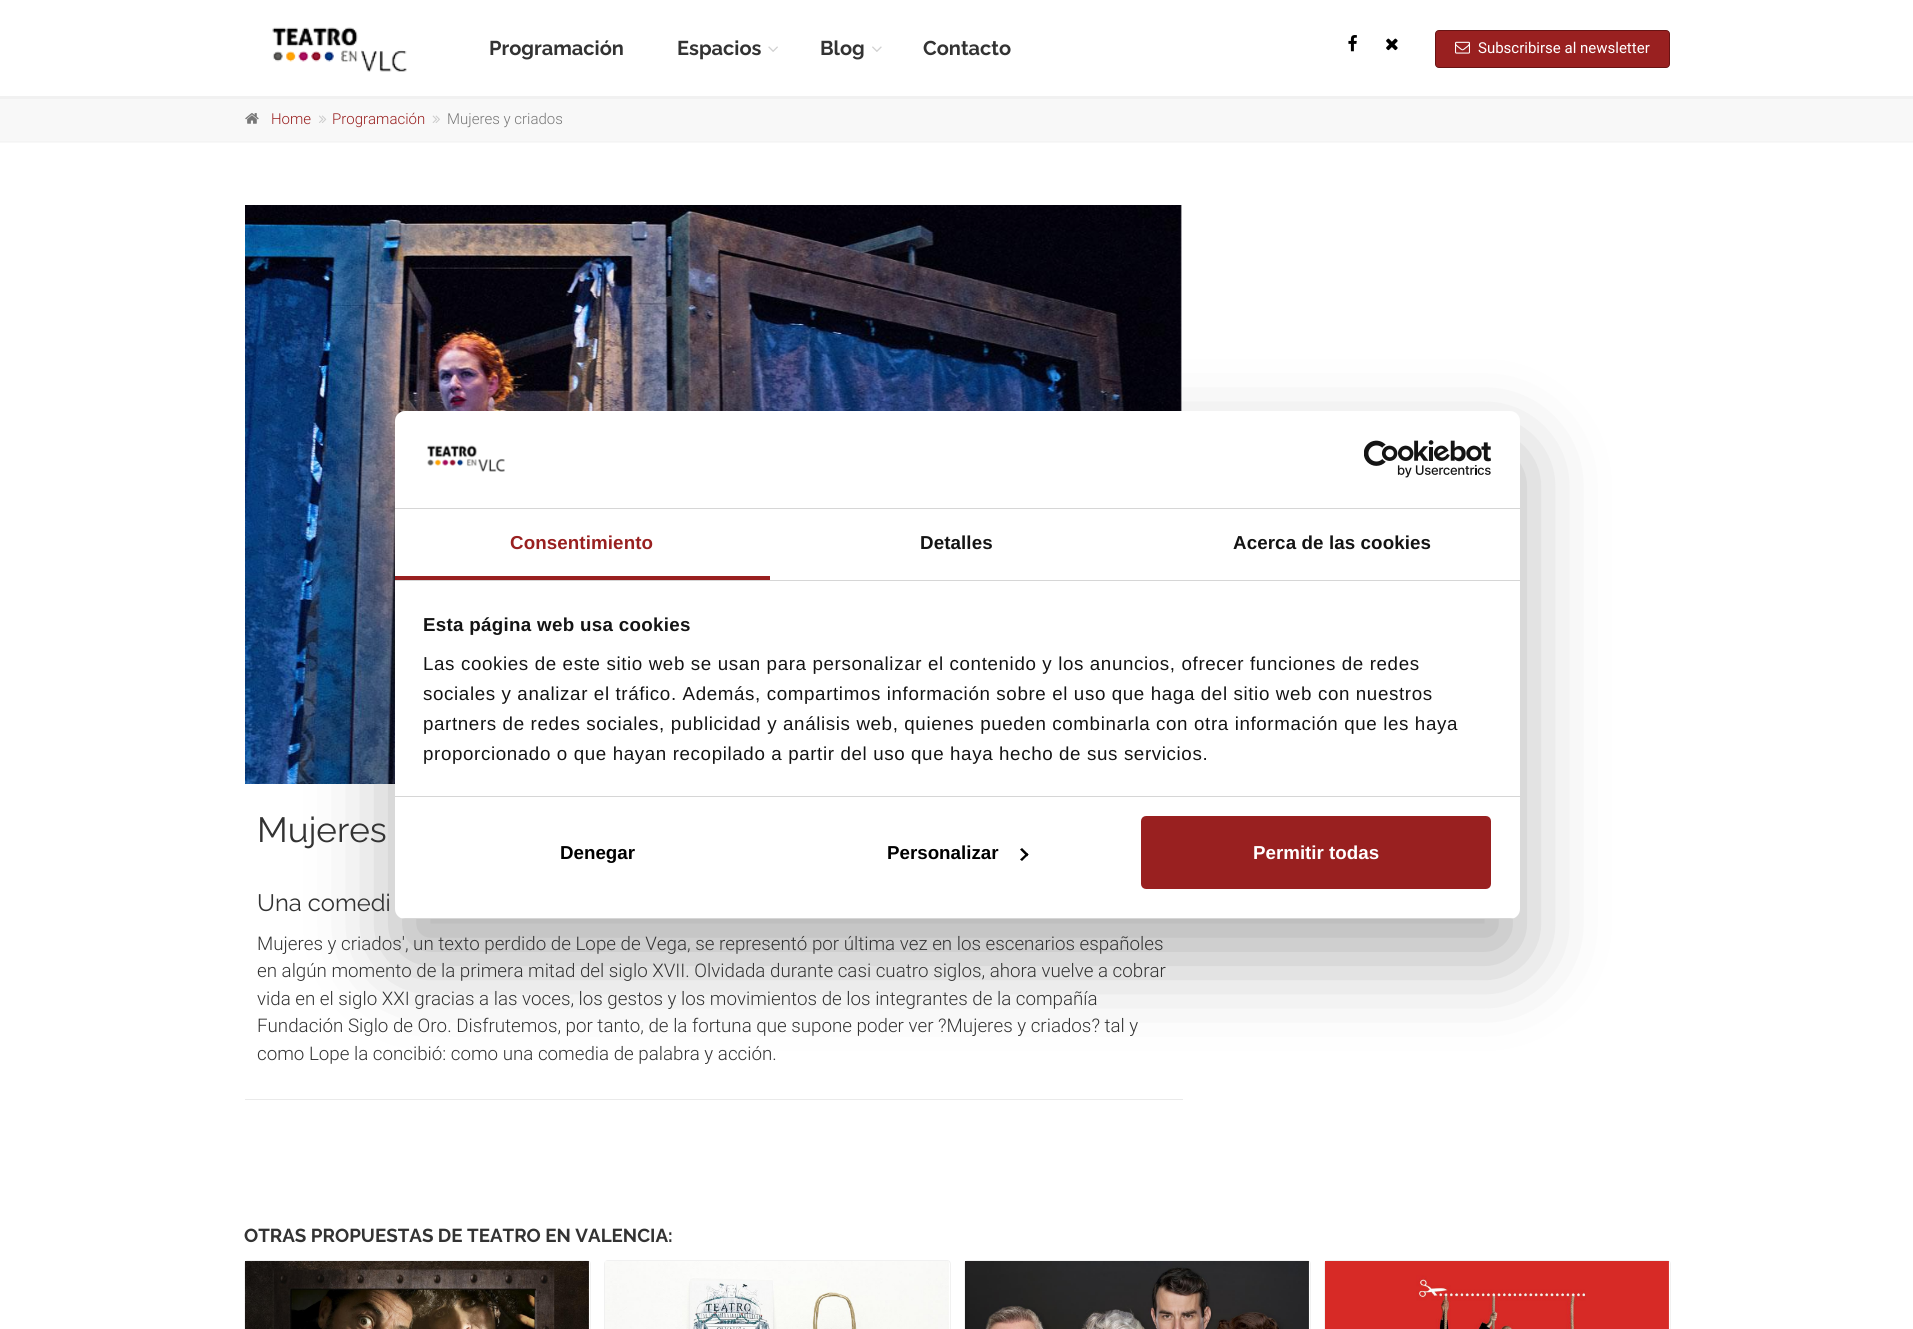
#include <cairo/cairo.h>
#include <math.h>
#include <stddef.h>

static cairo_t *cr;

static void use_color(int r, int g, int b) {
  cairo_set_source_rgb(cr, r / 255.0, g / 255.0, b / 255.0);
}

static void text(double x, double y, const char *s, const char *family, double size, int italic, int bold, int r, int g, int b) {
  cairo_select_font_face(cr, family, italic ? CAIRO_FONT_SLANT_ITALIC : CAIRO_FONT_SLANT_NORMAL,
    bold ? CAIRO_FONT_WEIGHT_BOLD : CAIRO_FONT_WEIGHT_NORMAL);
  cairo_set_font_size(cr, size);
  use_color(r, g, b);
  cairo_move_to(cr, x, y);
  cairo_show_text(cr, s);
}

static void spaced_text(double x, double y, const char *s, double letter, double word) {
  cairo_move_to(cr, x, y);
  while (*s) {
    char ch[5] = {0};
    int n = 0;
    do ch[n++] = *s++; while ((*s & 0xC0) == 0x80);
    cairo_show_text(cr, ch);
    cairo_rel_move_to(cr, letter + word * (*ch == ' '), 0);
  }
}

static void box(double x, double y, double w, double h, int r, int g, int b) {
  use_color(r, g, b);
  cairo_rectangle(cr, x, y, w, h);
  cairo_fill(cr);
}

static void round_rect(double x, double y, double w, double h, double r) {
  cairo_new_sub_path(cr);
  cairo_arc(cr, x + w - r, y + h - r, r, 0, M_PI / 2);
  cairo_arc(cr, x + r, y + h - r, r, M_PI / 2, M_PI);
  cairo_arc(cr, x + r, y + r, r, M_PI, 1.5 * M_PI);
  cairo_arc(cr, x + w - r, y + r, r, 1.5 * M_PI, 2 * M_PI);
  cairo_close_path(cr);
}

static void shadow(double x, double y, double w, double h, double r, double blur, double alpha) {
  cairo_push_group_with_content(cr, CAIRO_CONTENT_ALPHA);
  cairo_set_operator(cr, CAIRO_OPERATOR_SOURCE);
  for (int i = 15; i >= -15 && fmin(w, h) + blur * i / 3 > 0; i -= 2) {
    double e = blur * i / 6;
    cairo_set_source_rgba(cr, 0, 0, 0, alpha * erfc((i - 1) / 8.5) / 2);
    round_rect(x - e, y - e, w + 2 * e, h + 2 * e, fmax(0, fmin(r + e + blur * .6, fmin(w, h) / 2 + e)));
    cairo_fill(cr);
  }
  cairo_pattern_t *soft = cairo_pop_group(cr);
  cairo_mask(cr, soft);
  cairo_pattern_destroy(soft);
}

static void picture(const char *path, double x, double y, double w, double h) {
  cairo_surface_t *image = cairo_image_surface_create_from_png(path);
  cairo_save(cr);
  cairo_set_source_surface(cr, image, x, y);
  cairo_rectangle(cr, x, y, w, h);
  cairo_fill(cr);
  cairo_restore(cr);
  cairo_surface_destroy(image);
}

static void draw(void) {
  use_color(255, 255, 255);
  cairo_paint(cr);
  box(0, 96, 1913, 3, 241, 241, 241);
  picture("img_01.png", 272, 27, 135, 45);
  picture("img_02.png", 1348, 35, 9, 17);
  picture("img_03.png", 1386, 38, 12, 13);
  picture("img_04.png", 768, 46, 10, 6);
  picture("img_05.png", 872, 46, 10, 6);
  use_color(153, 32, 32);
  round_rect(1435.5, 30.5, 234, 37, 3.5);
  cairo_fill_preserve(cr);
  use_color(104, 19, 19);
  cairo_set_line_width(cr, 1);
  cairo_stroke(cr);
  picture("img_06.png", 1455, 41, 15, 13);
  box(0, 99, 1913, 44, 248, 248, 248);
  box(0, 141, 1913, 1, 244, 244, 244);
  picture("img_07.png", 245, 113, 14, 11);
  picture("img_08.png", 319, 115, 8, 8);
  picture("img_09.png", 432, 115, 8, 8);
  picture("img_10.png", 245, 205, 937, 579);
  box(245, 1099, 938, 1, 234, 234, 234);
  round_rect(244.5, 1260.5, 346, 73, 3.5);
  use_color(241, 241, 241);
  cairo_stroke(cr);
  picture("img_11.png", 245, 1261, 344, 68);
  round_rect(604.5, 1260.5, 346, 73, 3.5);
  cairo_stroke(cr);
  picture("img_12.png", 605, 1261, 344, 68);
  round_rect(964.5, 1260.5, 346, 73, 3.5);
  cairo_stroke(cr);
  picture("img_13.png", 965, 1261, 344, 68);
  round_rect(1324.5, 1260.5, 346, 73, 3.5);
  cairo_stroke(cr);
  picture("img_14.png", 1325, 1261, 344, 68);
  use_color(0, 0, 0);
  shadow(395, 451, 1125, 508, 10, 42.5, 0.3);
  use_color(255, 255, 255);
  round_rect(395, 411, 1125, 508, 10);
  cairo_fill(cr);
  box(395, 508, 1125, 1, 214, 214, 214);
  picture("img_15.png", 427, 445, 78, 27);
  picture("img_16.png", 1364, 440, 127, 38);
  box(395, 580, 1125, 1, 214, 214, 214);
  box(395, 576, 375, 4, 153, 32, 32);
  box(395, 796, 1125, 1, 214, 214, 214);
  cairo_save(cr);
  round_rect(395, 411, 1125, 508, 10);
  cairo_clip(cr);
  box(395, 918, 1125, 1, 214, 214, 214);
  cairo_restore(cr);
  use_color(0, 0, 0);
  cairo_new_path(cr);
  cairo_move_to(cr, 1022, 848);
  cairo_line_to(cr, 1028.5, 854.5);
  cairo_line_to(cr, 1027, 856.5);
  cairo_line_to(cr, 1020, 849.5);
  cairo_close_path(cr);
  cairo_fill(cr);
  cairo_new_path(cr);
  cairo_move_to(cr, 1027, 853);
  cairo_line_to(cr, 1028.5, 854.5);
  cairo_line_to(cr, 1022, 861);
  cairo_line_to(cr, 1020, 859.5);
  cairo_close_path(cr);
  cairo_fill(cr);
  use_color(153, 32, 32);
  round_rect(1142.5, 817.5, 347, 70, 3.5);
  cairo_fill_preserve(cr);
  cairo_set_line_width(cr, 3);
  cairo_stroke(cr);
  text(489, 55, "Programación", "Raleway", 20, 0, 1, 51, 51, 51);
  text(677, 55, "Espacios", "Raleway", 20, 0, 1, 51, 51, 51);
  text(820, 55, "Blog", "Raleway", 20, 0, 1, 51, 51, 51);
  text(923, 55, "Contacto", "Raleway", 20, 0, 1, 51, 51, 51);
  text(1478, 53, "Subscribirse al newsletter", "Roboto", 15, 0, 0, 255, 255, 255);
  text(271, 124, "Home", "Roboto Light", 15, 0, 0, 153, 32, 32);
  text(332, 124, "Programación", "Roboto Light", 15, 0, 0, 153, 32, 32);
  text(447, 124, "Mujeres y criados", "Roboto Light", 15, 0, 0, 119, 119, 119);
  text(257, 842, "Mujeres", "Raleway", 35, 0, 0, 51, 51, 51);
  text(257, 911, "Una comedi", "Raleway", 23.75, 0, 0, 51, 51, 51);
  text(257, 950, "Mujeres y criados', un texto perdido de Lope de Vega, se representó por última vez en los escenarios españoles", "Roboto Light", 18.75, 0, 0, 51, 51, 51);
  text(257, 977, "en algún momento de la primera mitad del siglo XVII. Olvidada durante casi cuatro siglos, ahora vuelve a cobrar", "Roboto Light", 18.75, 0, 0, 51, 51, 51);
  text(257, 1005, "vida en el siglo XXI gracias a las voces, los gestos y los movimientos de los integrantes de la compañía", "Roboto Light", 18.75, 0, 0, 51, 51, 51);
  text(257, 1032, "Fundación Siglo de Oro. Disfrutemos, por tanto, de la fortuna que supone poder ver ?Mujeres y criados? tal y", "Roboto Light", 18.75, 0, 0, 51, 51, 51);
  text(257, 1060, "como Lope la concibió: como una comedia de palabra y acción.", "Roboto Light", 18.75, 0, 0, 51, 51, 51);
  text(244, 1242, "OTRAS PROPUESTAS DE TEATRO EN VALENCIA:", "Raleway", 18.75, 0, 1, 51, 51, 51);
  cairo_select_font_face(cr, "Liberation Sans", CAIRO_FONT_SLANT_NORMAL, CAIRO_FONT_WEIGHT_BOLD);
  use_color(153, 32, 32);
  spaced_text(510, 549, "Consentimiento", 0.1, 0);
  use_color(20, 20, 20);
  spaced_text(920, 549, "Detalles", 0.1, 0);
  spaced_text(1233, 549, "Acerca de las cookies", 0.1, 0);
  spaced_text(423, 631, "Esta página web usa cookies", 0.3, 0);
  cairo_select_font_face(cr, "Liberation Sans", CAIRO_FONT_SLANT_NORMAL, CAIRO_FONT_WEIGHT_NORMAL);
  spaced_text(423, 670, "Las cookies de este sitio web se usan para personalizar el contenido y los anuncios, ofrecer funciones de redes", 0.62, 0);
  spaced_text(423, 700, "sociales y analizar el tráfico. Además, compartimos información sobre el uso que haga del sitio web con nuestros", 0.62, 0);
  spaced_text(423, 730, "partners de redes sociales, publicidad y análisis web, quienes pueden combinarla con otra información que les haya", 0.62, 0);
  spaced_text(423, 760, "proporcionado o que hayan recopilado a partir del uso que haya hecho de sus servicios.", 0.62, 0);
  text(560, 859, "Denegar", "Liberation Sans", 18.75, 0, 1, 0, 0, 0);
  text(887, 859, "Personalizar", "Liberation Sans", 18.75, 0, 1, 0, 0, 0);
  text(1253, 859, "Permitir todas", "Liberation Sans", 18.75, 0, 1, 255, 255, 255);
}

int main(void) {
  cairo_surface_t *surface = cairo_image_surface_create(CAIRO_FORMAT_RGB24, 1913, 1329);
  cr = cairo_create(surface);
  cairo_font_options_t *options = cairo_font_options_create();
  cairo_font_options_set_hint_metrics(options, CAIRO_HINT_METRICS_OFF);
  cairo_font_options_set_hint_style(options, CAIRO_HINT_STYLE_NONE);
  cairo_set_font_options(cr, options);
  cairo_set_miter_limit(cr, 4);
  draw();
  cairo_surface_write_to_png(surface, "out.png");
  cairo_font_options_destroy(options);
  cairo_destroy(cr);
  cairo_surface_destroy(surface);
  return 0;
}
